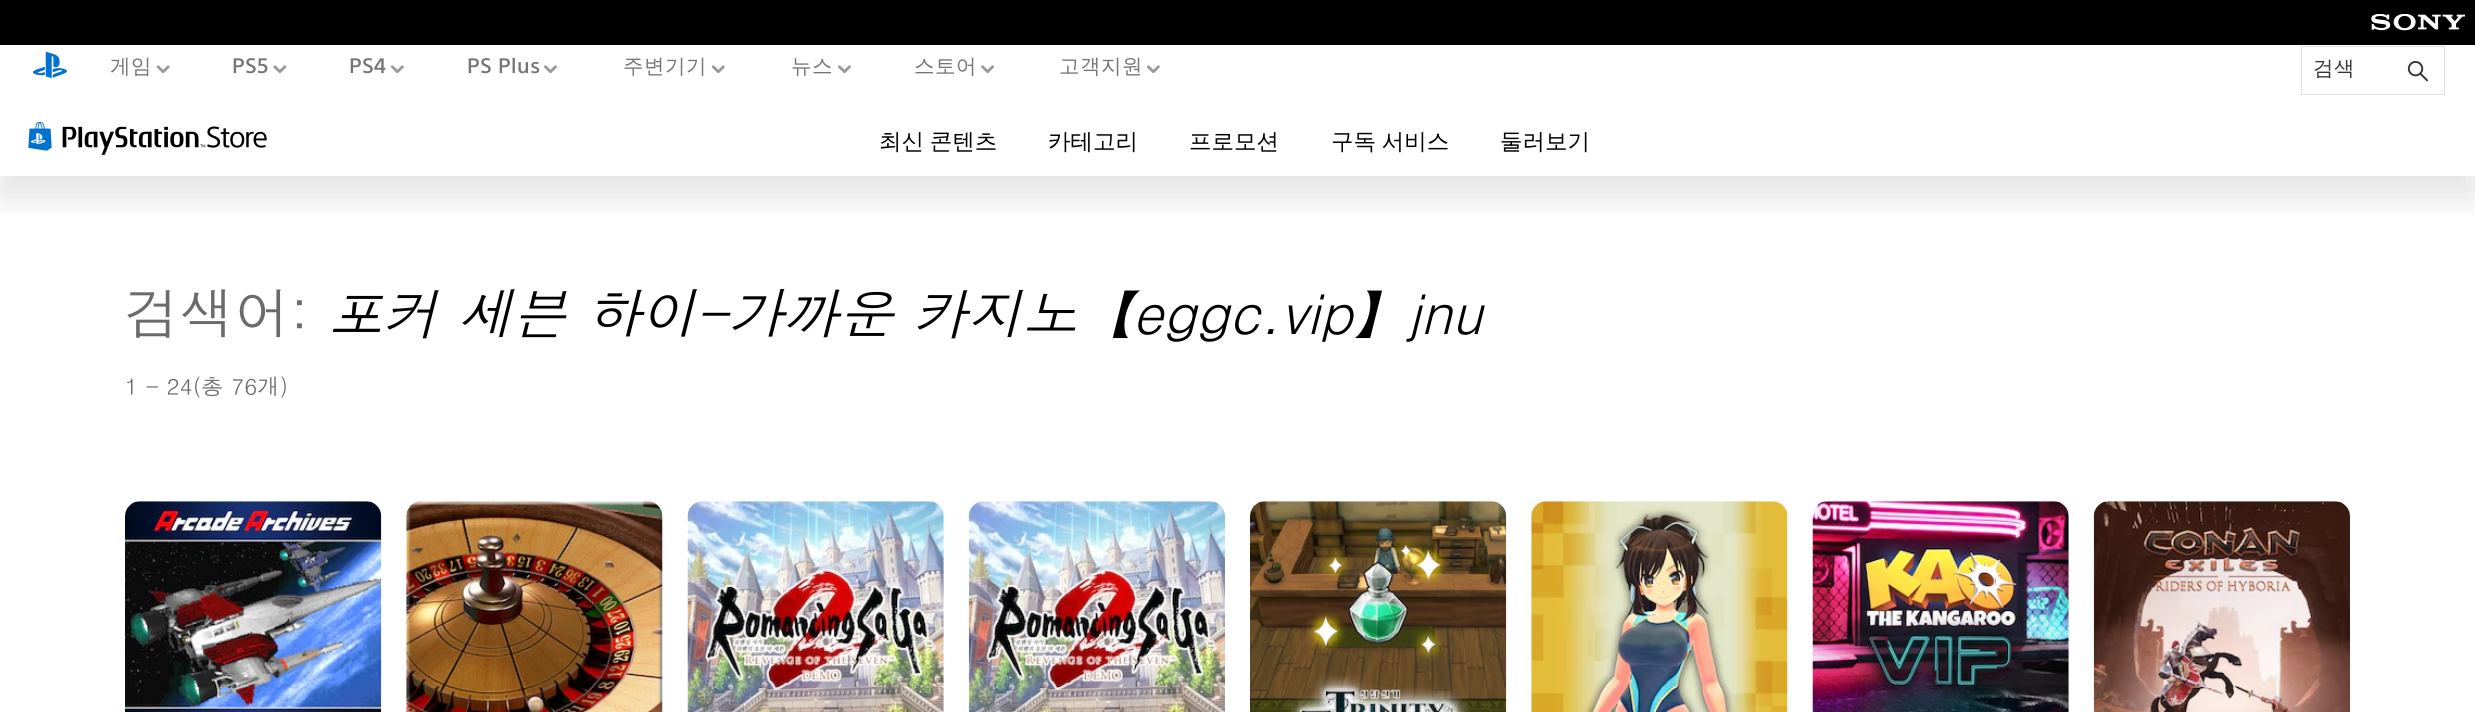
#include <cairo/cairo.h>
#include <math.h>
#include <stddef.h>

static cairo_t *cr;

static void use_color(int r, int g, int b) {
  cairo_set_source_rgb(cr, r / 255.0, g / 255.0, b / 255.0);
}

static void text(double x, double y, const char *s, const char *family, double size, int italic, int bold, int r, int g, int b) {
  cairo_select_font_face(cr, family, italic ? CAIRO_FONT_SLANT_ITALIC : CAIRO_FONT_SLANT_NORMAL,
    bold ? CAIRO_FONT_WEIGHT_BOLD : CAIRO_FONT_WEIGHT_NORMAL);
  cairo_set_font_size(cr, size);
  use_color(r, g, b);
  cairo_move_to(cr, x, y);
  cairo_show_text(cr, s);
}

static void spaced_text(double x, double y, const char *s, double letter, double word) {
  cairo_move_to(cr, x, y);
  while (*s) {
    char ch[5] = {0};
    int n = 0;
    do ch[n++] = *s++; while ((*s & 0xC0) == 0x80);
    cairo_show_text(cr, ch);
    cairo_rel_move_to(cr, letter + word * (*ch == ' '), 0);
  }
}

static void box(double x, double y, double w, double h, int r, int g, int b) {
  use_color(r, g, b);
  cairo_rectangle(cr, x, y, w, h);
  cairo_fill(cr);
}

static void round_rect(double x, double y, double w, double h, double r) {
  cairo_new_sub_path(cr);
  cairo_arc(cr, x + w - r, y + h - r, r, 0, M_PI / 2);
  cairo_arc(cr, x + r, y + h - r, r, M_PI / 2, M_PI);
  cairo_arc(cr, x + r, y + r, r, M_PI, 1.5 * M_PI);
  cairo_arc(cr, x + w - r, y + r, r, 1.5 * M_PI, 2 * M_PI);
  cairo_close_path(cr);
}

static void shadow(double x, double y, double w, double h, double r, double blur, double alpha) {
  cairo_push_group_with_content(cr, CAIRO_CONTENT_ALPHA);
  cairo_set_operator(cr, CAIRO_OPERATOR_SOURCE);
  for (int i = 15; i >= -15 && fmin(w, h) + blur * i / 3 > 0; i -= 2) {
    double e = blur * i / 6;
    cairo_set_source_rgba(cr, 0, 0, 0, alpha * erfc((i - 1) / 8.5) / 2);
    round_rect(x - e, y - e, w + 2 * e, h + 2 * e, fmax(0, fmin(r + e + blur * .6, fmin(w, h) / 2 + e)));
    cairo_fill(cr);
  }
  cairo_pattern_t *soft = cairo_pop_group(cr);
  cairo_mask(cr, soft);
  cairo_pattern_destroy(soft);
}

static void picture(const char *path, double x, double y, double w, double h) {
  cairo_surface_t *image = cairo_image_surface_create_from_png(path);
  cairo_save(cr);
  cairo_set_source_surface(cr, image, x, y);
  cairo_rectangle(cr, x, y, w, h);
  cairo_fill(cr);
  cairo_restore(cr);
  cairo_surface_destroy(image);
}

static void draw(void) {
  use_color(255, 255, 255);
  cairo_paint(cr);
  box(0, 0, 2475, 45, 0, 0, 0);
  picture("img_01.png", 2371, 14, 94, 17);
  cairo_save(cr);
  cairo_rectangle(cr, 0, 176, 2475, 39);
  cairo_clip(cr);
  use_color(0, 0, 0);
  shadow(0, 116, 2475, 80, 0, 20, 0.12);
  cairo_restore(cr);
  box(2, 88, 2471, 8, 255, 255, 255);
  picture("img_02.png", 33, 51, 34, 28);
  picture("img_03.png", 156, 65, 14, 9);
  picture("img_04.png", 273, 65, 14, 9);
  picture("img_05.png", 390, 65, 14, 9);
  picture("img_06.png", 544, 65, 13, 9);
  picture("img_07.png", 711, 65, 14, 9);
  picture("img_08.png", 838, 65, 13, 9);
  picture("img_09.png", 981, 65, 13, 9);
  picture("img_10.png", 1146, 65, 14, 9);
  cairo_rectangle(cr, 2301.5, 46.5, 143, 48);
  use_color(222, 222, 222);
  cairo_set_line_width(cr, 1);
  cairo_stroke(cr);
  picture("img_11.png", 2407, 61, 21, 21);
  picture("img_12.png", 28, 121, 24, 30);
  picture("img_13.png", 62, 126, 205, 29);
  picture("img_14.png", 125, 501, 257, 211);
  picture("img_15.png", 406, 501, 257, 211);
  picture("img_16.png", 687, 501, 257, 211);
  picture("img_17.png", 968, 501, 257, 211);
  picture("img_18.png", 1250, 501, 257, 211);
  picture("img_19.png", 1531, 501, 257, 211);
  picture("img_20.png", 1812, 501, 257, 211);
  picture("img_21.png", 2093, 501, 257, 211);
  cairo_select_font_face(cr, "WenQuanYi Zen Hei Medium", CAIRO_FONT_SLANT_NORMAL, CAIRO_FONT_WEIGHT_NORMAL);
  cairo_set_font_size(cr, 20.5);
  use_color(117, 117, 117);
  spaced_text(110, 73, "게임", 0.5, 0);
  cairo_select_font_face(cr, "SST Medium", CAIRO_FONT_SLANT_NORMAL, CAIRO_FONT_WEIGHT_NORMAL);
  spaced_text(232, 73, "PS5", 0.5, 0);
  spaced_text(349, 73, "PS4", 0.5, 0);
  spaced_text(467, 73, "PS Plus", 0.5, 0);
  cairo_select_font_face(cr, "WenQuanYi Zen Hei Medium", CAIRO_FONT_SLANT_NORMAL, CAIRO_FONT_WEIGHT_NORMAL);
  spaced_text(623, 73, "주변기기", 0.5, 0);
  spaced_text(791, 73, "뉴스", 0.5, 0);
  spaced_text(914, 73, "스토어", 0.5, 0);
  spaced_text(1059, 73, "고객지원", 0.5, 0);
  use_color(54, 54, 54);
  spaced_text(2313, 75, "검색", 0.5, 0);
  cairo_set_font_size(cr, 22.5);
  use_color(0, 0, 0);
  spaced_text(879, 149, "최신 콘텐츠", 0, -1);
  text(1048, 149, "카테고리", "WenQuanYi Zen Hei Medium", 22.5, 0, 0, 0, 0, 0);
  text(1189, 149, "프로모션", "WenQuanYi Zen Hei Medium", 22.5, 0, 0, 0, 0, 0);
  spaced_text(1331, 149, "구독 서비스", 0, -1);
  text(1500, 149, "둘러보기", "WenQuanYi Zen Hei Medium", 22.5, 0, 0, 0, 0, 0);
  cairo_select_font_face(cr, "Dotum", CAIRO_FONT_SLANT_NORMAL, CAIRO_FONT_WEIGHT_NORMAL);
  cairo_set_font_size(cr, 55);
  use_color(107, 107, 107);
  spaced_text(125, 334, "검색어:", 0.1, 0);
  cairo_select_font_face(cr, "Dotum", CAIRO_FONT_SLANT_ITALIC, CAIRO_FONT_WEIGHT_NORMAL);
  use_color(0, 0, 0);
  spaced_text(328, 334, "포커 세븐 하이-가까운 카지노【eggc.vip】jnu", 0.1, 0);
  text(125, 395, "1 - 24(총 76개)", "Dotum", 22.5, 0, 0, 107, 107, 107);
}

int main(void) {
  cairo_surface_t *surface = cairo_image_surface_create(CAIRO_FORMAT_RGB24, 2475, 712);
  cr = cairo_create(surface);
  cairo_font_options_t *options = cairo_font_options_create();
  cairo_font_options_set_hint_metrics(options, CAIRO_HINT_METRICS_OFF);
  cairo_font_options_set_hint_style(options, CAIRO_HINT_STYLE_NONE);
  cairo_set_font_options(cr, options);
  cairo_set_miter_limit(cr, 4);
  draw();
  cairo_surface_write_to_png(surface, "out.png");
  cairo_font_options_destroy(options);
  cairo_destroy(cr);
  cairo_surface_destroy(surface);
  return 0;
}
